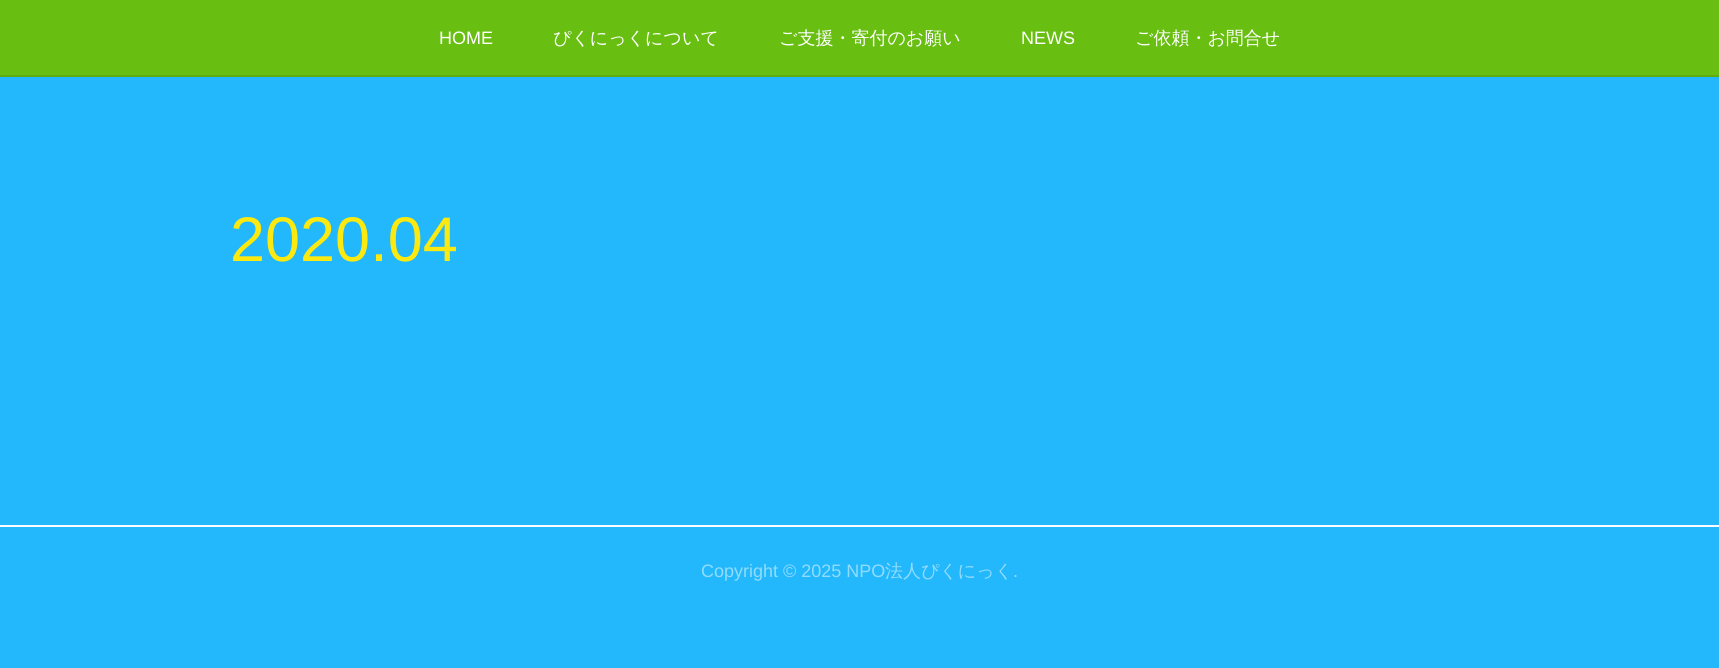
#include <cairo/cairo.h>
#include <math.h>
#include <stddef.h>

static cairo_t *cr;

static void use_color(int r, int g, int b) {
  cairo_set_source_rgb(cr, r / 255.0, g / 255.0, b / 255.0);
}

static void text(double x, double y, const char *s, const char *family, double size, int italic, int bold, int r, int g, int b) {
  cairo_select_font_face(cr, family, italic ? CAIRO_FONT_SLANT_ITALIC : CAIRO_FONT_SLANT_NORMAL,
    bold ? CAIRO_FONT_WEIGHT_BOLD : CAIRO_FONT_WEIGHT_NORMAL);
  cairo_set_font_size(cr, size);
  use_color(r, g, b);
  cairo_move_to(cr, x, y);
  cairo_show_text(cr, s);
}

static void box(double x, double y, double w, double h, int r, int g, int b) {
  use_color(r, g, b);
  cairo_rectangle(cr, x, y, w, h);
  cairo_fill(cr);
}

static void draw(void) {
  use_color(35, 184, 252);
  cairo_paint(cr);
  box(0, 0, 1719, 75, 104, 191, 17);
  box(0, 75, 1719, 2, 94, 172, 15);
  box(0, 525, 1719, 2, 252, 253, 255);
  text(439, 44, "HOME", "Liberation Sans", 18, 0, 0, 255, 255, 255);
  text(553, 44, "ぴくにっくについて", "WenQuanYi Zen Hei Medium", 18, 0, 0, 255, 255, 255);
  text(779, 44, "ご支援・寄付のお願い", "WenQuanYi Zen Hei Medium", 18, 0, 0, 255, 255, 255);
  text(1021, 44, "NEWS", "Liberation Sans", 18, 0, 0, 255, 255, 255);
  text(1135, 44, "ご依頼・お問合せ", "WenQuanYi Zen Hei Medium", 18, 0, 0, 255, 255, 255);
  text(230, 261, "2020.04", "Liberation Sans", 63, 0, 0, 252, 233, 15);
  text(701, 577, "Copyright © 2025 NPO", "Liberation Sans", 18, 0, 0, 145, 220, 254);
  text(885, 577, "法人ぴくにっく", "WenQuanYi Zen Hei Medium", 18, 0, 0, 145, 220, 254);
  text(1013, 577, ".", "Liberation Sans", 18, 0, 0, 145, 220, 254);
}

int main(void) {
  cairo_surface_t *surface = cairo_image_surface_create(CAIRO_FORMAT_RGB24, 1719, 668);
  cr = cairo_create(surface);
  cairo_font_options_t *options = cairo_font_options_create();
  cairo_font_options_set_hint_metrics(options, CAIRO_HINT_METRICS_OFF);
  cairo_font_options_set_hint_style(options, CAIRO_HINT_STYLE_NONE);
  cairo_set_font_options(cr, options);
  cairo_set_miter_limit(cr, 4);
  draw();
  cairo_surface_write_to_png(surface, "out.png");
  cairo_font_options_destroy(options);
  cairo_destroy(cr);
  cairo_surface_destroy(surface);
  return 0;
}
